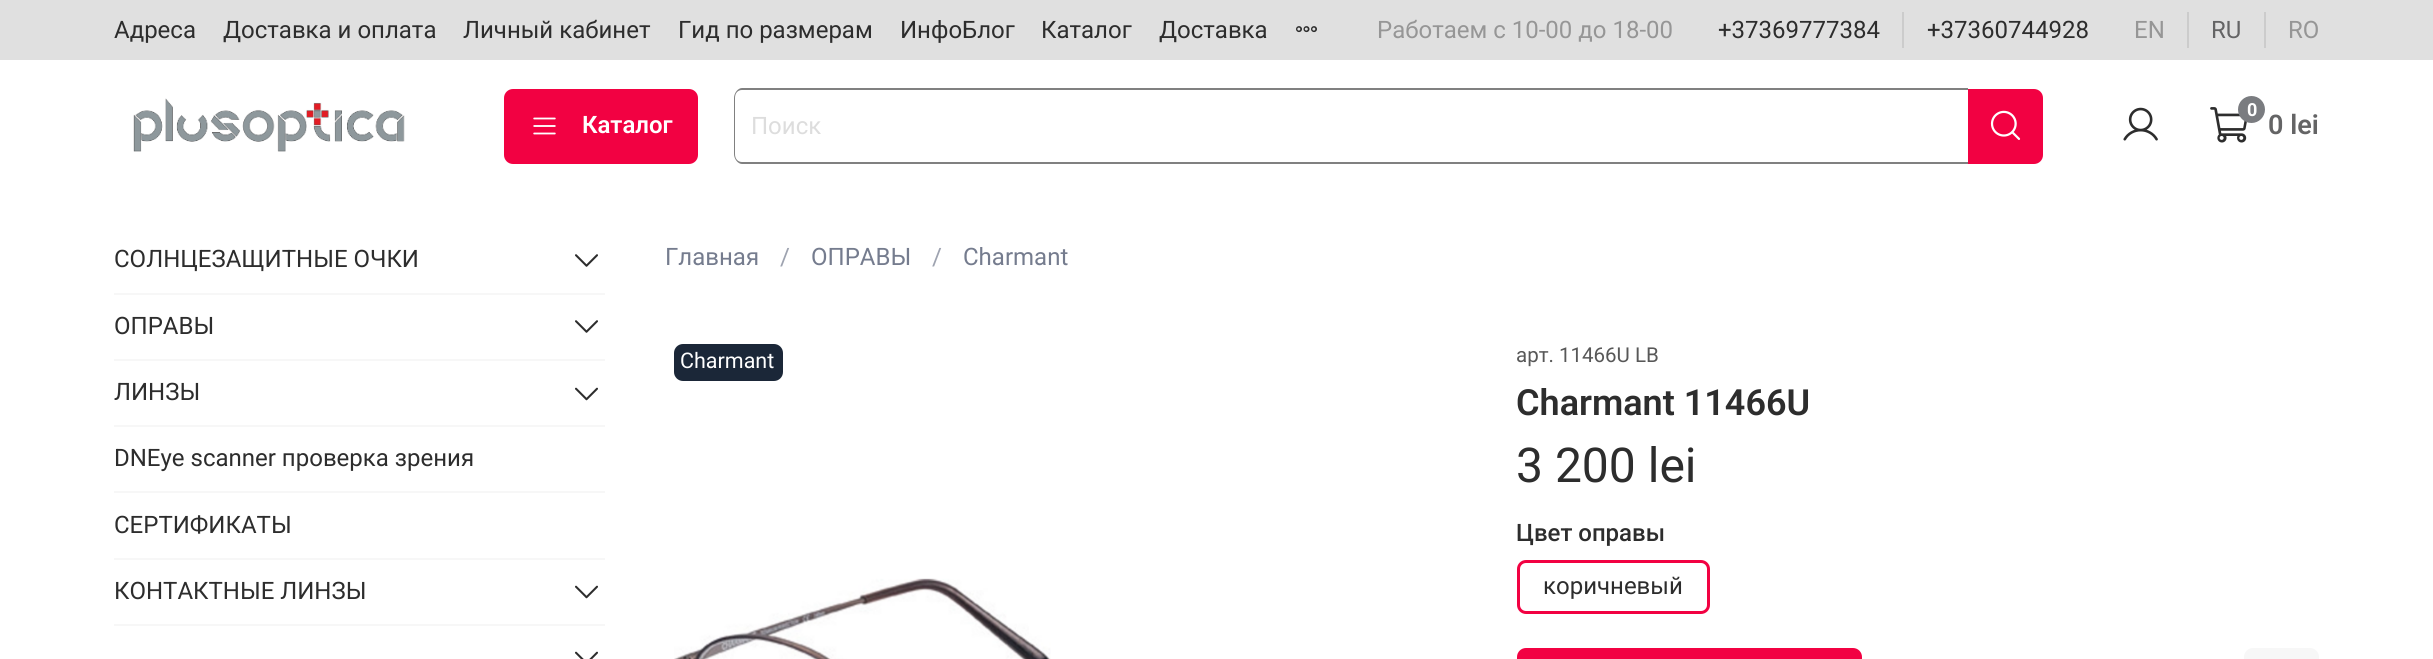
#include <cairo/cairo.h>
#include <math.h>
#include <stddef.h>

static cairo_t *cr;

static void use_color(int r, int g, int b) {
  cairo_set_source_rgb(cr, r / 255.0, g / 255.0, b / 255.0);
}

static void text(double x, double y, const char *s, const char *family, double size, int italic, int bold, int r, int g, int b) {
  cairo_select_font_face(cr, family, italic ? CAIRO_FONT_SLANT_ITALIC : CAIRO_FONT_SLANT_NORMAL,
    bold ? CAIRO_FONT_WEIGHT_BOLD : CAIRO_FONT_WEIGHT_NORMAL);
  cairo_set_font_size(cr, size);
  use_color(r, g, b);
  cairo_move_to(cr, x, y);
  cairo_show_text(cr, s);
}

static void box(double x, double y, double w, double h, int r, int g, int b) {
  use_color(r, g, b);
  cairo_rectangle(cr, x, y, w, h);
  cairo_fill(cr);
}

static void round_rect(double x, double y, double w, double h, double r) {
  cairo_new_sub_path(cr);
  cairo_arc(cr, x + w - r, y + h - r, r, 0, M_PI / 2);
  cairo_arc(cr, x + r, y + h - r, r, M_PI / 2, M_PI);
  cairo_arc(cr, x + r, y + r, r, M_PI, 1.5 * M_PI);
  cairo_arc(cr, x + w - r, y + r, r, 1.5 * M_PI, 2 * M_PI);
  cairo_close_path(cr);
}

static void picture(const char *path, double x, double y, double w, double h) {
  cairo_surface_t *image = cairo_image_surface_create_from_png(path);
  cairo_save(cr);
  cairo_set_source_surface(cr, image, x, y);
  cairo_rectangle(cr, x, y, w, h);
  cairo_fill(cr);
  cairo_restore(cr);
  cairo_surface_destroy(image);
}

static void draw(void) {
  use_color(255, 255, 255);
  cairo_paint(cr);
  box(0, 0, 2433, 60, 224, 224, 224);
  picture("img_01.png", 1296, 26, 21, 7);
  box(1902, 12, 2, 36, 204, 204, 204);
  box(2187, 12, 2, 36, 204, 204, 204);
  box(2264, 12, 2, 36, 204, 204, 204);
  picture("img_02.png", 133, 98, 272, 54);
  use_color(242, 1, 66);
  round_rect(504, 89, 194, 75, 9);
  cairo_fill(cr);
  picture("img_03.png", 533, 117, 23, 18);
  use_color(128, 128, 128);
  cairo_set_fill_rule(cr, CAIRO_FILL_RULE_EVEN_ODD);
  cairo_new_path(cr);
  cairo_move_to(cr, 742, 88);
  cairo_line_to(cr, 1968, 88);
  cairo_line_to(cr, 1968, 164);
  cairo_line_to(cr, 742, 164);
  cairo_curve_to(cr, 738, 164, 734, 159, 734, 154);
  cairo_line_to(cr, 734, 98);
  cairo_curve_to(cr, 734, 93, 738, 88, 742, 88);
  cairo_close_path(cr);
  cairo_move_to(cr, 742, 90);
  cairo_line_to(cr, 1968, 90);
  cairo_line_to(cr, 1968, 162);
  cairo_line_to(cr, 742, 162);
  cairo_curve_to(cr, 738, 162, 735, 159, 735, 154);
  cairo_line_to(cr, 735, 98);
  cairo_curve_to(cr, 735, 93, 738, 90, 742, 90);
  cairo_close_path(cr);
  cairo_fill(cr);
  use_color(242, 1, 66);
  cairo_new_path(cr);
  cairo_move_to(cr, 1968, 89);
  cairo_line_to(cr, 2034, 89);
  cairo_curve_to(cr, 2039, 89, 2043, 93, 2043, 98);
  cairo_line_to(cr, 2043, 155);
  cairo_curve_to(cr, 2043, 160, 2039, 164, 2034, 164);
  cairo_line_to(cr, 1968, 164);
  cairo_close_path(cr);
  cairo_fill(cr);
  picture("img_04.png", 1990, 110, 31, 30);
  picture("img_05.png", 2123, 107, 35, 34);
  picture("img_06.png", 2210, 107, 37, 36);
  use_color(122, 124, 128);
  cairo_arc(cr, 2251.5, 109.5, 13.5, 0, 2 * M_PI);
  cairo_fill(cr);
  box(114, 293, 491, 2, 247, 247, 247);
  picture("img_07.png", 575, 254, 23, 13);
  box(114, 359, 491, 2, 247, 247, 247);
  picture("img_07.png", 575, 320, 23, 13);
  box(114, 425, 491, 2, 247, 247, 247);
  picture("img_08.png", 575, 387, 23, 14);
  box(114, 491, 491, 2, 247, 247, 247);
  box(114, 558, 491, 2, 247, 247, 247);
  box(114, 624, 491, 2, 247, 247, 247);
  picture("img_08.png", 575, 585, 23, 14);
  picture("img_09.png", 575, 651, 23, 8);
  use_color(27, 39, 56);
  round_rect(674, 344, 109, 37, 9);
  cairo_fill(cr);
  picture("img_10.png", 674, 578, 377, 81);
  round_rect(1518.5, 561.5, 190, 51, 7.5);
  use_color(242, 1, 66);
  cairo_set_line_width(cr, 3);
  cairo_stroke(cr);
  round_rect(1517, 648, 345, 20, 9);
  cairo_fill(cr);
  use_color(247, 247, 247);
  round_rect(2244, 648, 75, 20, 9);
  cairo_fill(cr);
  text(114, 38, "Адреса", "Roboto", 24, 0, 0, 45, 45, 45);
  text(223, 38, "Доставка и оплата", "Roboto", 24, 0, 0, 45, 45, 45);
  text(463, 38, "Личный кабинет", "Roboto", 24, 0, 0, 45, 45, 45);
  text(678, 38, "Гид по размерам", "Roboto", 24, 0, 0, 45, 45, 45);
  text(900, 38, "ИнфоБлог", "Roboto", 24, 0, 0, 45, 45, 45);
  text(1041, 38, "Каталог", "Roboto", 24, 0, 0, 45, 45, 45);
  text(1159, 38, "Доставка", "Roboto", 24, 0, 0, 45, 45, 45);
  text(1377, 38, "Работаем с 10-00 до 18-00", "Roboto", 24, 0, 0, 150, 150, 150);
  text(1718, 38, "+37369777384", "Roboto", 24, 0, 0, 45, 45, 45);
  text(1927, 38, "+37360744928", "Roboto", 24, 0, 0, 45, 45, 45);
  text(2134, 38, "EN", "Roboto", 24, 0, 0, 150, 150, 150);
  text(2211, 38, "RU", "Roboto", 24, 0, 0, 100, 100, 101);
  text(2288, 38, "RO", "Roboto", 24, 0, 0, 150, 150, 150);
  text(582, 133, "Каталог", "Roboto SemiBold", 24, 0, 0, 255, 255, 255);
  text(751, 134, "Поиск", "Roboto", 24, 0, 0, 221, 221, 221);
  text(2247, 116, "0", "Roboto", 18, 0, 1, 255, 255, 255);
  text(2268, 134, "0 lei", "Roboto SemiBold", 27, 0, 0, 100, 100, 101);
  text(114, 267, "СОЛНЦЕЗАЩИТНЫЕ ОЧКИ", "Roboto", 24, 0, 0, 45, 45, 45);
  text(114, 334, "ОПРАВЫ", "Roboto", 24, 0, 0, 45, 45, 45);
  text(114, 400, "ЛИНЗЫ", "Roboto", 24, 0, 0, 45, 45, 45);
  text(114, 466, "DNEye scanner проверка зрения", "Roboto", 24, 0, 0, 45, 45, 45);
  text(114, 533, "СЕРТИФИКАТЫ", "Roboto", 24, 0, 0, 45, 45, 45);
  text(114, 599, "КОНТАКТНЫЕ ЛИНЗЫ", "Roboto", 24, 0, 0, 45, 45, 45);
  text(665, 265, "Главная", "Roboto", 24, 0, 0, 117, 124, 142);
  text(780, 265, "/", "Roboto", 24, 0, 0, 158, 163, 176);
  text(811, 265, "ОПРАВЫ", "Roboto", 24, 0, 0, 117, 124, 142);
  text(932, 265, "/", "Roboto", 24, 0, 0, 158, 163, 176);
  text(963, 265, "Charmant", "Roboto", 24, 0, 0, 117, 124, 142);
  text(680, 368, "Charmant", "Roboto", 21.5, 0, 0, 255, 255, 255);
  text(1516, 362, "арт. 11466U LB", "Roboto", 20.5, 0, 0, 88, 88, 88);
  text(1516, 415, "Charmant 11466U", "Roboto SemiBold", 36, 0, 0, 45, 45, 45);
  text(1516, 482, "3 200 lei", "Roboto", 48, 0, 0, 45, 45, 45);
  text(1516, 541, "Цвет оправы", "Roboto Medium", 24, 0, 0, 45, 45, 45);
  text(1543, 594, "коричневый", "Roboto", 24, 0, 0, 45, 45, 45);
}

int main(void) {
  cairo_surface_t *surface = cairo_image_surface_create(CAIRO_FORMAT_RGB24, 2433, 659);
  cr = cairo_create(surface);
  cairo_font_options_t *options = cairo_font_options_create();
  cairo_font_options_set_hint_metrics(options, CAIRO_HINT_METRICS_OFF);
  cairo_font_options_set_hint_style(options, CAIRO_HINT_STYLE_NONE);
  cairo_set_font_options(cr, options);
  cairo_set_miter_limit(cr, 4);
  draw();
  cairo_surface_write_to_png(surface, "out.png");
  cairo_font_options_destroy(options);
  cairo_destroy(cr);
  cairo_surface_destroy(surface);
  return 0;
}
